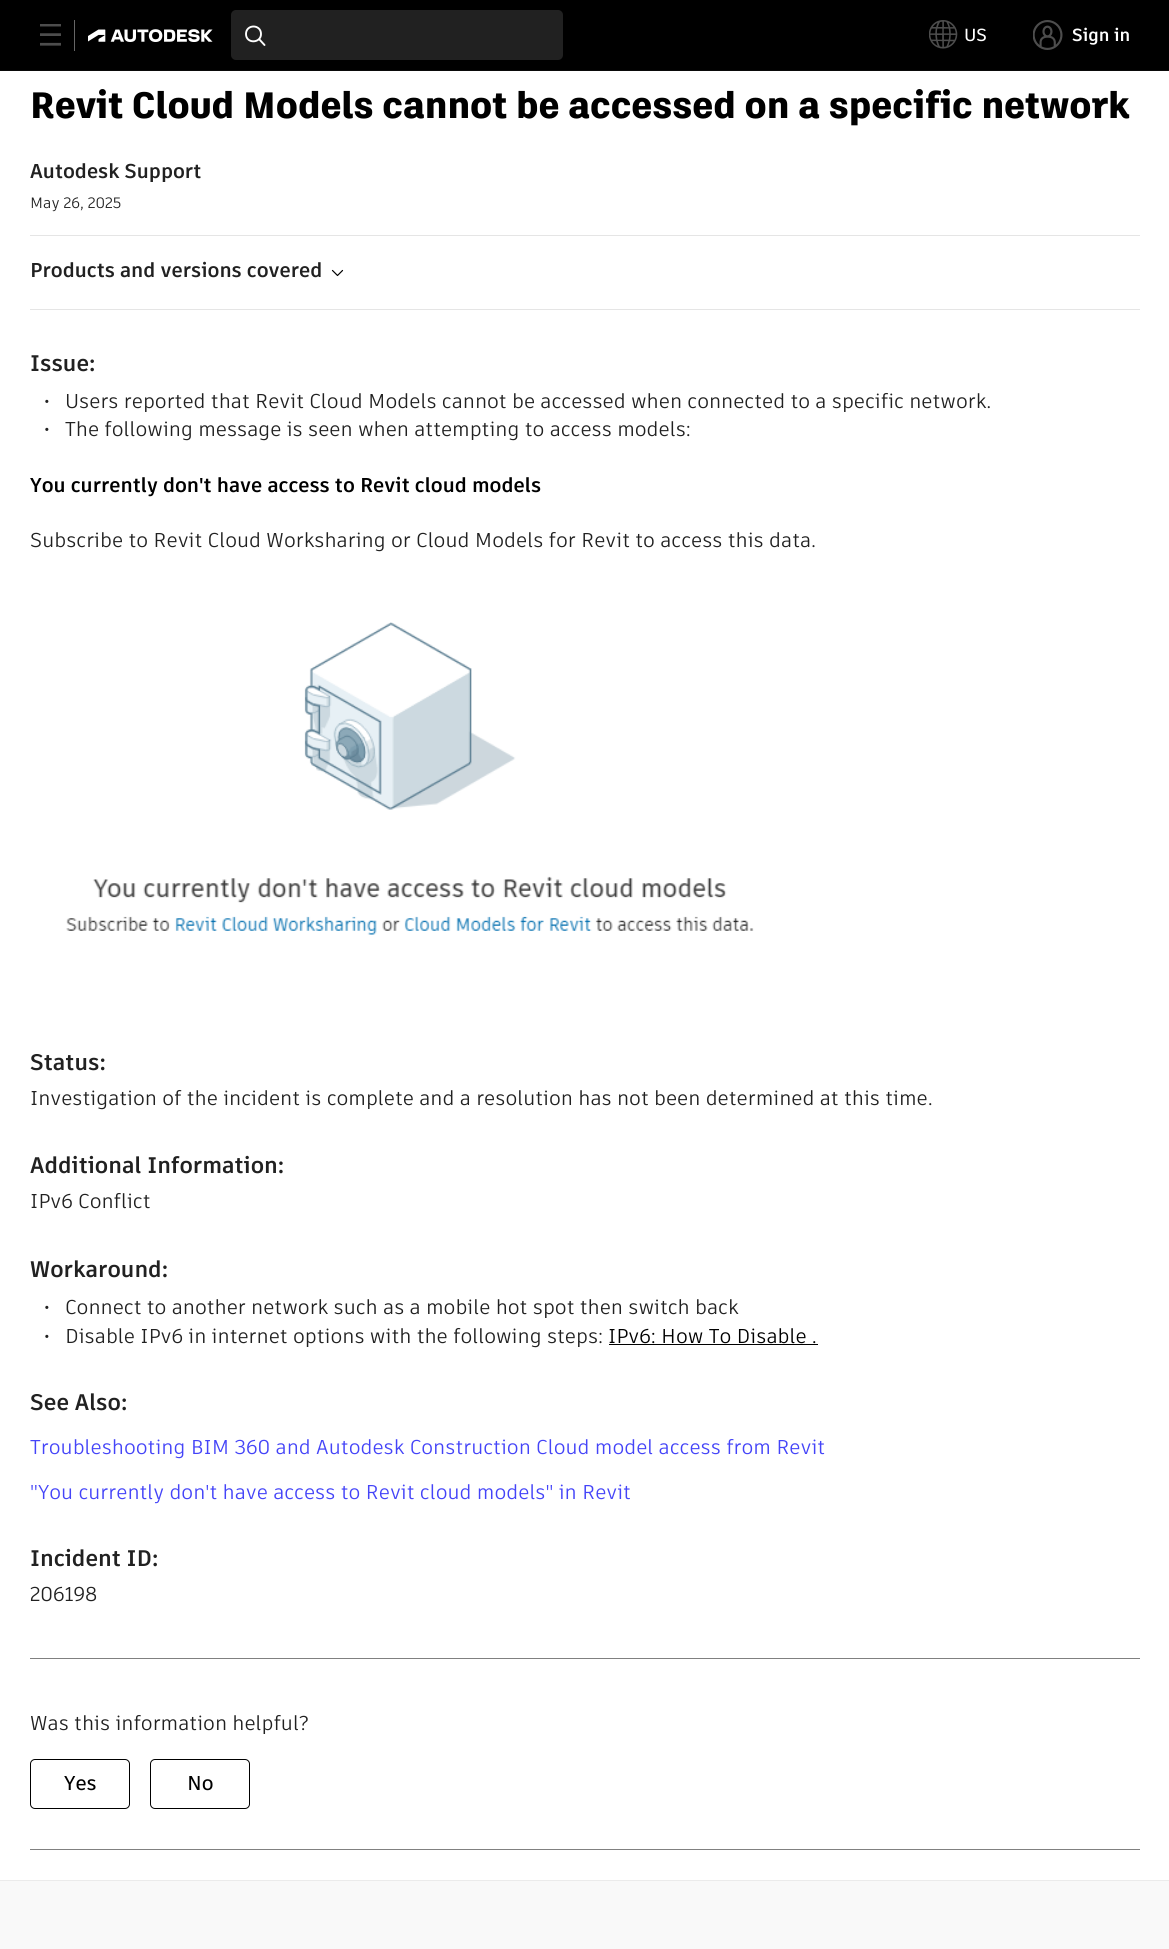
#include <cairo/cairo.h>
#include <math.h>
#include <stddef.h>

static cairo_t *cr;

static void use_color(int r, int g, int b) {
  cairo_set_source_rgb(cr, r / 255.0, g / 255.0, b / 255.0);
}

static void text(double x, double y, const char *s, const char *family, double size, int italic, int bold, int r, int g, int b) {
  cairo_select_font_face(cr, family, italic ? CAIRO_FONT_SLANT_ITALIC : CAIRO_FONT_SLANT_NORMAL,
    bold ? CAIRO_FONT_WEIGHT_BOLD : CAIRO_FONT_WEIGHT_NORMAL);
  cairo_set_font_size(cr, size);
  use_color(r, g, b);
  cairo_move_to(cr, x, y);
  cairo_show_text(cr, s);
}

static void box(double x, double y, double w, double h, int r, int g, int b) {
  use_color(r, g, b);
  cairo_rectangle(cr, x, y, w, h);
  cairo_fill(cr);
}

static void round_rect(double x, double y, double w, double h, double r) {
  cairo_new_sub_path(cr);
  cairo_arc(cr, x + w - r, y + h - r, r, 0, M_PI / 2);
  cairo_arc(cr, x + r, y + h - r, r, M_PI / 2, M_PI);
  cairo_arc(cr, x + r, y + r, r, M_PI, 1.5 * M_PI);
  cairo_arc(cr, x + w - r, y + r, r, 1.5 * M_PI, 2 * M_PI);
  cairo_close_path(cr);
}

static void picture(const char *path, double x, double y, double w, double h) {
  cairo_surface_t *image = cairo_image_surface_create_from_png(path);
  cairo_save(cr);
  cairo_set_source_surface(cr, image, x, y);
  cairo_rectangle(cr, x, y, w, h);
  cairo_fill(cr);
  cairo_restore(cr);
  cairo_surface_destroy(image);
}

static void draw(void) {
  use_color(255, 255, 255);
  cairo_paint(cr);
  box(0, 0, 1169, 70, 0, 0, 0);
  box(0, 70, 1169, 1, 10, 10, 10);
  picture("img_01.png", 40, 24, 21, 22);
  box(74, 20, 1, 31, 102, 102, 102);
  picture("img_02.png", 88, 29, 125, 13);
  use_color(33, 33, 33);
  round_rect(231, 10, 332, 50, 5);
  cairo_fill(cr);
  cairo_new_path(cr);
  cairo_move_to(cr, 259, 39);
  cairo_line_to(cr, 264.5, 45);
  cairo_move_to(cr, 261, 34);
  cairo_curve_to(cr, 261, 43.5, 246, 44, 246, 34);
  cairo_curve_to(cr, 246, 24, 261, 24, 261, 34);
  cairo_close_path(cr);
  use_color(255, 255, 255);
  cairo_set_line_width(cr, 1.9);
  cairo_set_line_cap(cr, CAIRO_LINE_CAP_ROUND);
  cairo_stroke(cr);
  picture("img_03.png", 929, 20, 29, 29);
  picture("img_04.png", 1033, 20, 30, 30);
  box(30, 235, 1110, 1, 229, 229, 229);
  cairo_new_path(cr);
  cairo_move_to(cr, 342.5, 270.5);
  cairo_line_to(cr, 337.5, 275.5);
  cairo_line_to(cr, 332.5, 270.5);
  use_color(0, 0, 0);
  cairo_set_line_width(cr, 1.2);
  cairo_set_line_join(cr, CAIRO_LINE_JOIN_ROUND);
  cairo_stroke(cr);
  box(30, 309, 1110, 1, 229, 229, 229);
  picture("img_05.png", 66, 622, 688, 313);
  box(609, 1344, 209, 1, 0, 0, 0);
  box(30, 1658, 1110, 1, 128, 128, 128);
  round_rect(30.5, 1759.5, 99, 49, 4.5);
  use_color(0, 0, 0);
  cairo_set_line_width(cr, 1);
  cairo_set_line_cap(cr, CAIRO_LINE_CAP_BUTT);
  cairo_set_line_join(cr, CAIRO_LINE_JOIN_MITER);
  cairo_stroke(cr);
  round_rect(150.5, 1759.5, 99, 49, 4.5);
  cairo_stroke(cr);
  box(30, 1849, 1110, 1, 128, 128, 128);
  box(0, 1880, 1169, 1, 235, 235, 235);
  box(0, 1881, 1169, 68, 249, 249, 249);
  text(964, 41, "US", "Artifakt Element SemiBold", 17.5, 0, 0, 255, 255, 255);
  text(1072, 41, "Sign in", "Artifakt Element", 17.5, 0, 1, 255, 255, 255);
  text(30, 118, "Revit Cloud Models cannot be accessed on a specific network", "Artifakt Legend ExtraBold", 36.6, 0, 0, 0, 0, 0);
  text(30, 178, "Autodesk Support", "Artifakt Element", 20, 0, 1, 33, 33, 33);
  text(30, 208, "May 26, 2025", "Artifakt Element", 15, 0, 0, 33, 33, 33);
  text(30, 277, "Products and versions covered", "Artifakt Element", 20, 0, 1, 33, 33, 33);
  text(30, 371, "Issue:", "Artifakt Element", 22.5, 0, 1, 33, 33, 33);
  text(44, 408, "·", "Artifakt Element", 20, 0, 1, 33, 33, 33);
  text(65, 408, "Users reported that Revit Cloud Models cannot be accessed when connected to a specific network.", "Artifakt Element", 20, 0, 0, 33, 33, 33);
  text(44, 436, "·", "Artifakt Element", 20, 0, 1, 33, 33, 33);
  text(65, 436, "The following message is seen when attempting to access models:", "Artifakt Element", 20, 0, 0, 33, 33, 33);
  text(30, 492, "You currently don't have access to Revit cloud models", "Artifakt Element", 20, 0, 1, 0, 0, 0);
  text(30, 547, "Subscribe to Revit Cloud Worksharing or Cloud Models for Revit to access this data.", "Artifakt Element", 20, 0, 0, 33, 33, 33);
  text(30, 1070, "Status:", "Artifakt Element", 22.5, 0, 1, 33, 33, 33);
  text(30, 1105, "Investigation of the incident is complete and a resolution has not been determined at this time.", "Artifakt Element", 20, 0, 0, 33, 33, 33);
  text(30, 1173, "Additional Information:", "Artifakt Element", 22.5, 0, 1, 33, 33, 33);
  text(30, 1208, "IPv6 Conflict", "Artifakt Element", 20, 0, 0, 33, 33, 33);
  text(30, 1277, "Workaround:", "Artifakt Element", 22.5, 0, 1, 33, 33, 33);
  text(44, 1314, "·", "Artifakt Element", 20, 0, 1, 33, 33, 33);
  text(65, 1314, "Connect to another network such as a mobile hot spot then switch back", "Artifakt Element", 20, 0, 0, 33, 33, 33);
  text(44, 1343, "·", "Artifakt Element", 20, 0, 1, 33, 33, 33);
  text(65, 1343, "Disable IPv6 in internet options with the following steps:", "Artifakt Element", 20, 0, 0, 33, 33, 33);
  text(608, 1343, "IPv6: How To Disable .", "Artifakt Element", 20, 0, 0, 0, 0, 0);
  text(30, 1410, "See Also:", "Artifakt Element", 22.5, 0, 1, 33, 33, 33);
  text(30, 1454, "Troubleshooting BIM 360 and Autodesk Construction Cloud model access from Revit", "Artifakt Element", 20, 0, 0, 68, 68, 248);
  text(30, 1499, "\"You currently don't have access to Revit cloud models\" in Revit", "Artifakt Element", 20, 0, 0, 68, 68, 248);
  text(30, 1566, "Incident ID:", "Artifakt Element", 22.5, 0, 1, 33, 33, 33);
  text(30, 1601, "206198", "Artifakt Element", 20, 0, 0, 33, 33, 33);
  text(30, 1730, "Was this information helpful?", "Artifakt Element", 20, 0, 0, 33, 33, 33);
  text(64, 1790, "Yes", "Artifakt Element SemiBold", 20, 0, 0, 0, 0, 0);
  text(187, 1790, "No", "Artifakt Element SemiBold", 20, 0, 0, 0, 0, 0);
}

int main(void) {
  cairo_surface_t *surface = cairo_image_surface_create(CAIRO_FORMAT_RGB24, 1169, 1949);
  cr = cairo_create(surface);
  cairo_font_options_t *options = cairo_font_options_create();
  cairo_font_options_set_hint_metrics(options, CAIRO_HINT_METRICS_OFF);
  cairo_font_options_set_hint_style(options, CAIRO_HINT_STYLE_NONE);
  cairo_set_font_options(cr, options);
  cairo_set_miter_limit(cr, 4);
  draw();
  cairo_surface_write_to_png(surface, "out.png");
  cairo_font_options_destroy(options);
  cairo_destroy(cr);
  cairo_surface_destroy(surface);
  return 0;
}
